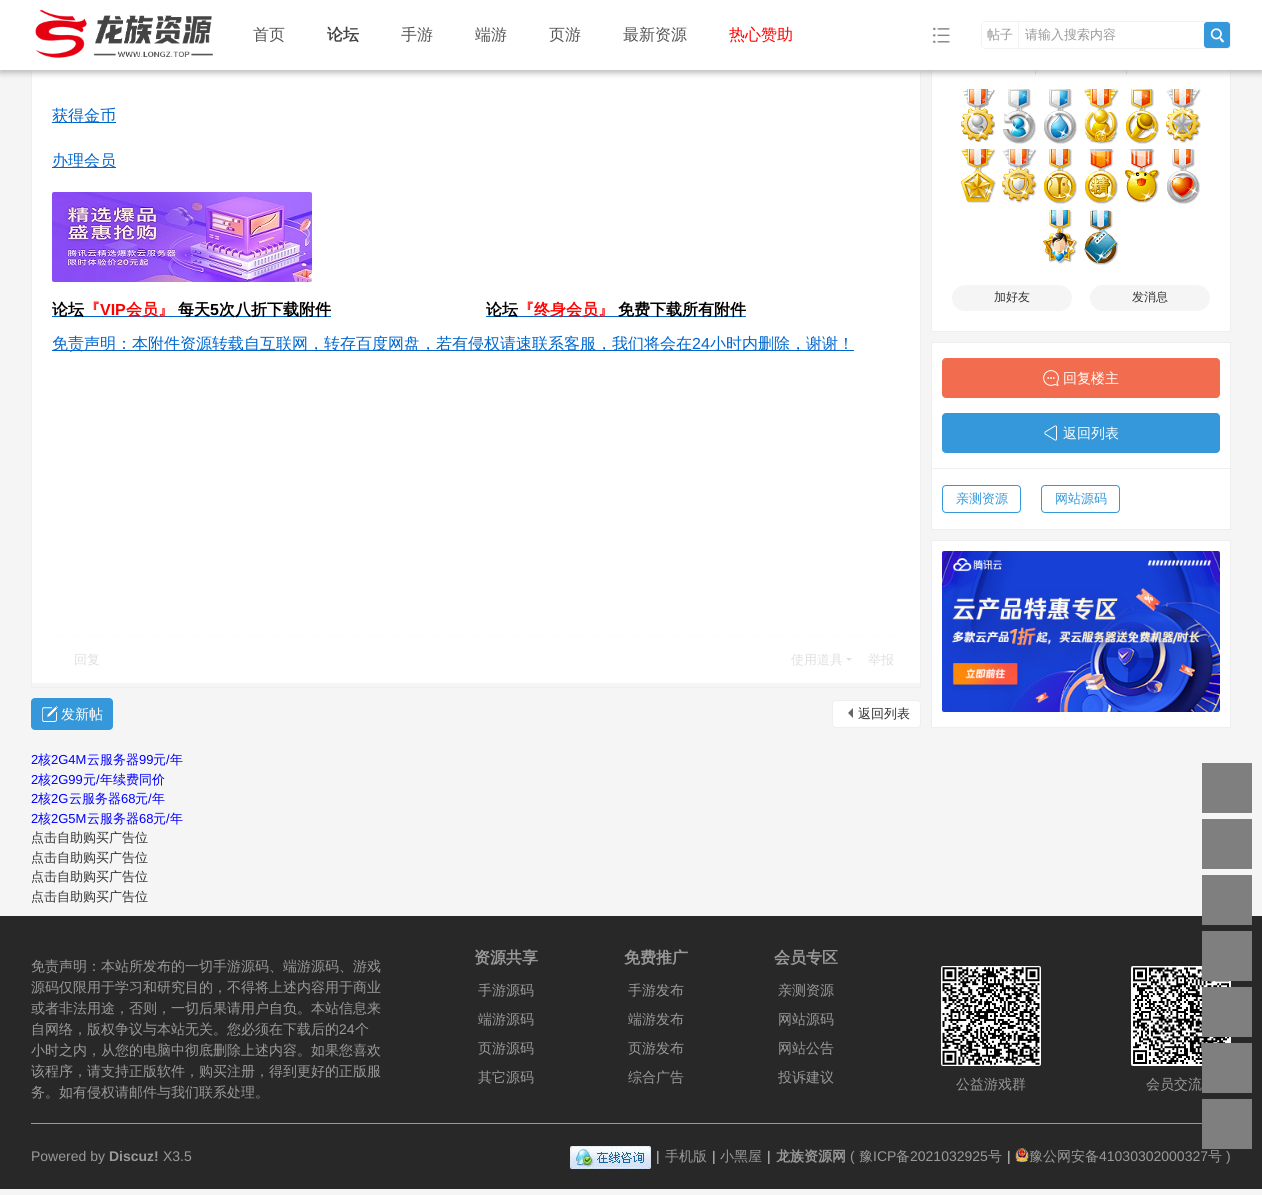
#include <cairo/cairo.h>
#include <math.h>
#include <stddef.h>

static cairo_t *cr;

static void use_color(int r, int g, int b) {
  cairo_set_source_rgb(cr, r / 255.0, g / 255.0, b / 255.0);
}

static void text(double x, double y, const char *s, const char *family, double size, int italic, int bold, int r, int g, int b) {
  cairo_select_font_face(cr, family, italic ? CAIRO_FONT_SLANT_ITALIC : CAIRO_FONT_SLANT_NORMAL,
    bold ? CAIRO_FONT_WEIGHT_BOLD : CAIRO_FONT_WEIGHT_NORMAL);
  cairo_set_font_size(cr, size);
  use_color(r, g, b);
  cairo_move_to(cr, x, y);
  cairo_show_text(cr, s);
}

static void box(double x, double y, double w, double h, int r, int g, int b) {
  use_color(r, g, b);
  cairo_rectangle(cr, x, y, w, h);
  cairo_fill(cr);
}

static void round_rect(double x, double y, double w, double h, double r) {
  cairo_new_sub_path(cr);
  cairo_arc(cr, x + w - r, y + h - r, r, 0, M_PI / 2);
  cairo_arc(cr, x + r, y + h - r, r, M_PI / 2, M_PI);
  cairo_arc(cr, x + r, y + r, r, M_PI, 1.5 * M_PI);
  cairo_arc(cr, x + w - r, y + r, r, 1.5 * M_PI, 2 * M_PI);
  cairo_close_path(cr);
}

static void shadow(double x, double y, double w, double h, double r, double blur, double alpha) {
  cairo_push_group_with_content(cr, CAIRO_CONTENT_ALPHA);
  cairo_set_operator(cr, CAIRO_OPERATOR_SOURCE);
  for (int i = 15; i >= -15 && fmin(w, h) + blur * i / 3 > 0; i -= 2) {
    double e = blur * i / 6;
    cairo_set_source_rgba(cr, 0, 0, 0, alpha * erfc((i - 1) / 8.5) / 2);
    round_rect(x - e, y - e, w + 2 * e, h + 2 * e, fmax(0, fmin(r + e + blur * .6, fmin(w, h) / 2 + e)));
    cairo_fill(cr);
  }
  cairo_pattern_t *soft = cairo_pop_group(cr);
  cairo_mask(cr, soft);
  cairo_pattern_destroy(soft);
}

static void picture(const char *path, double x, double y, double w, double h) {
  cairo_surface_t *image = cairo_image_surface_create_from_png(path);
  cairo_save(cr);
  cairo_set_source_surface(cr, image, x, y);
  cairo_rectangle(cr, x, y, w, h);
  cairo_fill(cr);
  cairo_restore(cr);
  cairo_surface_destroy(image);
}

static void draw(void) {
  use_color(245, 245, 245);
  cairo_paint(cr);
  box(32, 70, 888, 613, 255, 255, 255);
  cairo_rectangle(cr, 31.5, -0.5, 889, 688);
  use_color(238, 238, 238);
  cairo_set_line_width(cr, 1);
  cairo_stroke(cr);
  box(932, 70, 298, 261, 255, 255, 255);
  cairo_rectangle(cr, 931.5, -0.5, 299, 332);
  use_color(238, 238, 238);
  cairo_stroke(cr);
  box(1035, 70, 1, 4, 204, 204, 204);
  box(1126, 70, 1, 4, 204, 204, 204);
  use_color(187, 187, 187);
  shadow(0, 3, 1262, 70, 0, 3, 1);
  box(0, 0, 1262, 70, 255, 255, 255);
  picture("img_01.png", 35, 9, 178, 49);
  picture("img_02.png", 933, 27, 17, 17);
  round_rect(981.5, 21.5, 249, 27, 3.5);
  use_color(242, 242, 242);
  cairo_stroke(cr);
  use_color(255, 255, 255);
  cairo_new_path(cr);
  cairo_move_to(cr, 985, 22);
  cairo_line_to(cr, 1019, 22);
  cairo_line_to(cr, 1019, 48);
  cairo_line_to(cr, 985, 48);
  cairo_curve_to(cr, 983.5, 48, 982, 46.5, 982, 45);
  cairo_line_to(cr, 982, 25);
  cairo_curve_to(cr, 982, 23.5, 983.5, 22, 985, 22);
  cairo_close_path(cr);
  cairo_fill(cr);
  box(1018, 22, 1, 26, 242, 242, 242);
  use_color(52, 152, 219);
  round_rect(1204, 22, 26, 26, 3);
  cairo_fill(cr);
  picture("img_03.png", 1210, 28, 15, 15);
  box(52, 122, 64, 1, 0, 102, 204);
  box(52, 167, 64, 1, 0, 102, 204);
  picture("img_04.png", 52, 192, 260, 90);
  box(52, 316, 279, 1, 0, 102, 204);
  box(486, 316, 260, 1, 0, 102, 204);
  box(52, 350, 802, 1, 0, 102, 204);
  cairo_new_path(cr);
  cairo_move_to(cr, 52, 636.5);
  cairo_line_to(cr, 900, 636.5);
  use_color(252, 252, 252);
  cairo_set_dash(cr, (double[]){3, 2}, 2, 0);
  cairo_stroke(cr);
  use_color(224, 224, 224);
  cairo_new_path(cr);
  cairo_move_to(cr, 846, 658);
  cairo_line_to(cr, 852, 658);
  cairo_line_to(cr, 849, 661);
  cairo_close_path(cr);
  cairo_fill(cr);
  box(919, 683, 1, 5, 238, 238, 238);
  box(919, 683, 1, 4, 243, 243, 243);
  use_color(52, 152, 219);
  round_rect(31, 698, 82, 32, 4);
  cairo_fill(cr);
  picture("img_05.png", 42, 706, 16, 16);
  use_color(255, 255, 255);
  round_rect(832.5, 700.5, 88, 27, 3.5);
  cairo_fill_preserve(cr);
  use_color(238, 238, 238);
  cairo_set_dash(cr, NULL, 0, 0);
  cairo_stroke(cr);
  use_color(102, 102, 102);
  cairo_new_path(cr);
  cairo_move_to(cr, 853, 708);
  cairo_line_to(cr, 853, 718);
  cairo_line_to(cr, 848, 713);
  cairo_close_path(cr);
  cairo_fill(cr);
  picture("img_06.png", 961, 89, 34, 53);
  picture("img_07.png", 1003, 89, 33, 55);
  picture("img_08.png", 1044, 89, 33, 55);
  picture("img_09.png", 1084, 89, 35, 55);
  picture("img_10.png", 1126, 89, 33, 55);
  picture("img_11.png", 1166, 89, 35, 54);
  picture("img_12.png", 961, 149, 35, 54);
  picture("img_13.png", 1002, 149, 35, 54);
  picture("img_14.png", 1044, 149, 33, 55);
  picture("img_15.png", 1085, 149, 33, 55);
  picture("img_16.png", 1125, 149, 35, 54);
  picture("img_17.png", 1167, 149, 33, 55);
  picture("img_18.png", 1043, 210, 35, 54);
  picture("img_19.png", 1084, 210, 35, 55);
  use_color(245, 245, 245);
  round_rect(952, 285, 120, 26, 13);
  cairo_fill(cr);
  round_rect(1090, 285, 120, 26, 13);
  cairo_fill(cr);
  box(932, 343, 298, 125, 255, 255, 255);
  box(931, 342, 300, 1, 238, 238, 238);
  box(1230, 342, 1, 126, 238, 238, 238);
  box(931, 342, 1, 126, 238, 238, 238);
  use_color(242, 108, 79);
  round_rect(942, 358, 278, 40, 4);
  cairo_fill(cr);
  picture("img_20.png", 1043, 370, 16, 16);
  use_color(52, 152, 219);
  round_rect(942, 413, 278, 40, 4);
  cairo_fill(cr);
  picture("img_21.png", 1044, 425, 13, 16);
  use_color(255, 255, 255);
  cairo_rectangle(cr, 931.5, 468.5, 299, 61);
  cairo_fill_preserve(cr);
  use_color(238, 238, 238);
  cairo_stroke(cr);
  round_rect(942.5, 485.5, 78, 27, 3.5);
  use_color(52, 152, 219);
  cairo_stroke(cr);
  round_rect(1041.5, 485.5, 78, 27, 3.5);
  cairo_stroke(cr);
  use_color(255, 255, 255);
  cairo_rectangle(cr, 931.5, 540.5, 299, 187);
  cairo_fill_preserve(cr);
  use_color(238, 238, 238);
  cairo_stroke(cr);
  picture("img_22.png", 942, 551, 278, 161);
  box(1202, 763, 50, 50, 127, 127, 127);
  box(1202, 819, 50, 50, 127, 127, 127);
  box(0, 916, 1262, 273, 40, 40, 40);
  box(1202, 875, 50, 50, 127, 127, 127);
  picture("img_24.png", 1131, 966, 100, 100);
  box(1202, 931, 50, 50, 127, 127, 127);
  box(1202, 987, 50, 50, 127, 127, 127);
  box(1202, 1043, 50, 50, 127, 127, 127);
  box(1202, 1099, 50, 50, 127, 127, 127);
  box(31, 1123, 1171, 1, 153, 153, 153);
  picture("img_23.png", 941, 966, 100, 100);
  picture("img_25.png", 570, 1146, 81, 23);
  picture("img_26.png", 1015, 1148, 14, 14);
  text(253, 40, "首页", "WenQuanYi Zen Hei Medium", 16, 0, 0, 85, 85, 85);
  text(327, 40, "论坛", "WenQuanYi Zen Hei", 16, 0, 1, 68, 68, 68);
  text(401, 40, "手游", "WenQuanYi Zen Hei Medium", 16, 0, 0, 85, 85, 85);
  text(475, 40, "端游", "WenQuanYi Zen Hei Medium", 16, 0, 0, 85, 85, 85);
  text(549, 40, "页游", "WenQuanYi Zen Hei Medium", 16, 0, 0, 85, 85, 85);
  text(623, 40, "最新资源", "WenQuanYi Zen Hei Medium", 16, 0, 0, 85, 85, 85);
  text(729, 40, "热心赞助", "WenQuanYi Zen Hei Medium", 16, 0, 0, 255, 0, 0);
  text(987, 39, "帖子", "WenQuanYi Zen Hei Medium", 13, 0, 0, 153, 153, 153);
  text(1025, 39, "请输入搜索内容", "WenQuanYi Zen Hei Medium", 13, 0, 0, 153, 153, 153);
  text(52, 121, "获得金币", "WenQuanYi Zen Hei Medium", 16, 0, 0, 0, 102, 204);
  text(52, 166, "办理会员", "WenQuanYi Zen Hei Medium", 16, 0, 0, 0, 102, 204);
  text(52, 315, "论坛", "WenQuanYi Zen Hei", 16, 0, 1, 0, 0, 0);
  text(84, 315, "『", "WenQuanYi Zen Hei", 16, 0, 1, 255, 0, 0);
  text(100, 315, "VIP", "Liberation Sans", 16, 0, 1, 255, 0, 0);
  text(126, 315, "会员』", "WenQuanYi Zen Hei", 16, 0, 1, 255, 0, 0);
  text(178, 315, "每天", "WenQuanYi Zen Hei", 16, 0, 1, 0, 0, 0);
  text(210, 315, "5", "Liberation Sans", 16, 0, 1, 0, 0, 0);
  text(219, 315, "次八折下载附件", "WenQuanYi Zen Hei", 16, 0, 1, 0, 0, 0);
  text(486, 315, "论坛", "WenQuanYi Zen Hei", 16, 0, 1, 0, 0, 0);
  text(518, 315, "『终身会员』", "WenQuanYi Zen Hei", 16, 0, 1, 255, 0, 0);
  text(618, 315, "免费下载所有附件", "WenQuanYi Zen Hei", 16, 0, 1, 0, 0, 0);
  text(52, 349, "免责声明：本附件资源转载自互联网，转存百度网盘，若有侵权请速联系客服，我们将会在", "WenQuanYi Zen Hei Medium", 16, 0, 0, 0, 102, 204);
  text(692, 349, "24", "Liberation Sans", 16, 0, 0, 0, 102, 204);
  text(710, 349, "小时内删除，谢谢！", "WenQuanYi Zen Hei Medium", 16, 0, 0, 0, 102, 204);
  text(74, 664, "回复", "WenQuanYi Zen Hei Medium", 13, 0, 0, 224, 224, 224);
  text(791, 664, "使用道具", "WenQuanYi Zen Hei Medium", 13, 0, 0, 224, 224, 224);
  text(868, 664, "举报", "WenQuanYi Zen Hei Medium", 13, 0, 0, 224, 224, 224);
  text(61, 719, "发新帖", "WenQuanYi Zen Hei Medium", 14, 0, 0, 255, 255, 255);
  text(858, 718, "返回列表", "WenQuanYi Zen Hei Medium", 13, 0, 0, 51, 51, 51);
  text(994, 301, "加好友", "WenQuanYi Zen Hei Medium", 12, 0, 0, 51, 51, 51);
  text(1132, 301, "发消息", "WenQuanYi Zen Hei Medium", 12, 0, 0, 51, 51, 51);
  text(1063, 383, "回复楼主", "WenQuanYi Zen Hei Medium", 14, 0, 0, 255, 255, 255);
  text(1063, 438, "返回列表", "WenQuanYi Zen Hei Medium", 14, 0, 0, 255, 255, 255);
  text(956, 503, "亲测资源", "WenQuanYi Zen Hei Medium", 13, 0, 0, 52, 152, 219);
  text(1055, 503, "网站源码", "WenQuanYi Zen Hei Medium", 13, 0, 0, 52, 152, 219);
  text(31, 764, "2", "Liberation Sans", 13, 0, 0, 0, 0, 255);
  text(38, 764, "核", "WenQuanYi Zen Hei Medium", 13, 0, 0, 0, 0, 255);
  text(51, 764, "2G4M", "Liberation Sans", 13, 0, 0, 0, 0, 255);
  text(87, 764, "云服务器", "WenQuanYi Zen Hei Medium", 13, 0, 0, 0, 0, 255);
  text(139, 764, "99", "Liberation Sans", 13, 0, 0, 0, 0, 255);
  text(153, 764, "元", "WenQuanYi Zen Hei Medium", 13, 0, 0, 0, 0, 255);
  text(166, 764, "/", "Liberation Sans", 13, 0, 0, 0, 0, 255);
  text(170, 764, "年", "WenQuanYi Zen Hei Medium", 13, 0, 0, 0, 0, 255);
  text(31, 784, "2", "Liberation Sans", 13, 0, 0, 0, 0, 255);
  text(38, 784, "核", "WenQuanYi Zen Hei Medium", 13, 0, 0, 0, 0, 255);
  text(51, 784, "2G99", "Liberation Sans", 13, 0, 0, 0, 0, 255);
  text(83, 784, "元", "WenQuanYi Zen Hei Medium", 13, 0, 0, 0, 0, 255);
  text(96, 784, "/", "Liberation Sans", 13, 0, 0, 0, 0, 255);
  text(100, 784, "年续费同价", "WenQuanYi Zen Hei Medium", 13, 0, 0, 0, 0, 255);
  text(31, 803, "2", "Liberation Sans", 13, 0, 0, 0, 0, 255);
  text(38, 803, "核", "WenQuanYi Zen Hei Medium", 13, 0, 0, 0, 0, 255);
  text(51, 803, "2G", "Liberation Sans", 13, 0, 0, 0, 0, 255);
  text(69, 803, "云服务器", "WenQuanYi Zen Hei Medium", 13, 0, 0, 0, 0, 255);
  text(121, 803, "68", "Liberation Sans", 13, 0, 0, 0, 0, 255);
  text(135, 803, "元", "WenQuanYi Zen Hei Medium", 13, 0, 0, 0, 0, 255);
  text(148, 803, "/", "Liberation Sans", 13, 0, 0, 0, 0, 255);
  text(152, 803, "年", "WenQuanYi Zen Hei Medium", 13, 0, 0, 0, 0, 255);
  text(31, 823, "2", "Liberation Sans", 13, 0, 0, 0, 0, 255);
  text(38, 823, "核", "WenQuanYi Zen Hei Medium", 13, 0, 0, 0, 0, 255);
  text(51, 823, "2G5M", "Liberation Sans", 13, 0, 0, 0, 0, 255);
  text(87, 823, "云服务器", "WenQuanYi Zen Hei Medium", 13, 0, 0, 0, 0, 255);
  text(139, 823, "68", "Liberation Sans", 13, 0, 0, 0, 0, 255);
  text(153, 823, "元", "WenQuanYi Zen Hei Medium", 13, 0, 0, 0, 0, 255);
  text(166, 823, "/", "Liberation Sans", 13, 0, 0, 0, 0, 255);
  text(170, 823, "年", "WenQuanYi Zen Hei Medium", 13, 0, 0, 0, 0, 255);
  text(31, 842, "点击自助购买广告位", "WenQuanYi Zen Hei Medium", 13, 0, 0, 51, 51, 51);
  text(31, 862, "点击自助购买广告位", "WenQuanYi Zen Hei Medium", 13, 0, 0, 51, 51, 51);
  text(31, 881, "点击自助购买广告位", "WenQuanYi Zen Hei Medium", 13, 0, 0, 51, 51, 51);
  text(31, 901, "点击自助购买广告位", "WenQuanYi Zen Hei Medium", 13, 0, 0, 51, 51, 51);
  text(31, 971, "免责声明：本站所发布的一切手游源码、端游源码、游戏", "WenQuanYi Zen Hei Medium", 14, 0, 0, 153, 153, 153);
  text(31, 992, "源码仅限用于学习和研究目的，不得将上述内容用于商业", "WenQuanYi Zen Hei Medium", 14, 0, 0, 153, 153, 153);
  text(31, 1013, "或者非法用途，否则，一切后果请用户自负。本站信息来", "WenQuanYi Zen Hei Medium", 14, 0, 0, 153, 153, 153);
  text(31, 1034, "自网络，版权争议与本站无关。您必须在下载后的", "WenQuanYi Zen Hei Medium", 14, 0, 0, 153, 153, 153);
  text(339, 1034, "24", "Liberation Sans", 14, 0, 0, 153, 153, 153);
  text(355, 1034, "个", "WenQuanYi Zen Hei Medium", 14, 0, 0, 153, 153, 153);
  text(31, 1055, "小时之内，从您的电脑中彻底删除上述内容。如果您喜欢", "WenQuanYi Zen Hei Medium", 14, 0, 0, 153, 153, 153);
  text(31, 1076, "该程序，请支持正版软件，购买注册，得到更好的正版服", "WenQuanYi Zen Hei Medium", 14, 0, 0, 153, 153, 153);
  text(31, 1097, "务。如有侵权请邮件与我们联系处理。", "WenQuanYi Zen Hei Medium", 14, 0, 0, 153, 153, 153);
  text(474, 963, "资源共享", "WenQuanYi Zen Hei", 16, 0, 1, 153, 153, 153);
  text(478, 995, "手游源码", "WenQuanYi Zen Hei Medium", 14, 0, 0, 153, 153, 153);
  text(478, 1024, "端游源码", "WenQuanYi Zen Hei Medium", 14, 0, 0, 153, 153, 153);
  text(478, 1053, "页游源码", "WenQuanYi Zen Hei Medium", 14, 0, 0, 153, 153, 153);
  text(478, 1082, "其它源码", "WenQuanYi Zen Hei Medium", 14, 0, 0, 153, 153, 153);
  text(624, 963, "免费推广", "WenQuanYi Zen Hei", 16, 0, 1, 153, 153, 153);
  text(628, 995, "手游发布", "WenQuanYi Zen Hei Medium", 14, 0, 0, 153, 153, 153);
  text(628, 1024, "端游发布", "WenQuanYi Zen Hei Medium", 14, 0, 0, 153, 153, 153);
  text(628, 1053, "页游发布", "WenQuanYi Zen Hei Medium", 14, 0, 0, 153, 153, 153);
  text(628, 1082, "综合广告", "WenQuanYi Zen Hei Medium", 14, 0, 0, 153, 153, 153);
  text(774, 963, "会员专区", "WenQuanYi Zen Hei", 16, 0, 1, 153, 153, 153);
  text(778, 995, "亲测资源", "WenQuanYi Zen Hei Medium", 14, 0, 0, 153, 153, 153);
  text(778, 1024, "网站源码", "WenQuanYi Zen Hei Medium", 14, 0, 0, 153, 153, 153);
  text(778, 1053, "网站公告", "WenQuanYi Zen Hei Medium", 14, 0, 0, 153, 153, 153);
  text(778, 1082, "投诉建议", "WenQuanYi Zen Hei Medium", 14, 0, 0, 153, 153, 153);
  text(956, 1089, "公益游戏群", "WenQuanYi Zen Hei Medium", 14, 0, 0, 153, 153, 153);
  text(1146, 1089, "会员交流", "WenQuanYi Zen Hei Medium", 14, 0, 0, 153, 153, 153);
  text(31, 1161, "Powered by", "Liberation Sans", 14, 0, 0, 153, 153, 153);
  text(109, 1161, "Discuz!", "Liberation Sans", 14, 0, 1, 153, 153, 153);
  text(163, 1161, "X3.5", "Liberation Sans", 14, 0, 0, 153, 153, 153);
  text(656, 1161, "|", "Liberation Sans", 14, 0, 0, 204, 204, 204);
  text(665, 1161, "手机版", "WenQuanYi Zen Hei Medium", 14, 0, 0, 153, 153, 153);
  text(712, 1161, "|", "Liberation Sans", 14, 0, 0, 204, 204, 204);
  text(720, 1161, "小黑屋", "WenQuanYi Zen Hei Medium", 14, 0, 0, 153, 153, 153);
  text(767, 1161, "|", "Liberation Sans", 14, 0, 0, 204, 204, 204);
  text(776, 1161, "龙族资源网", "WenQuanYi Zen Hei", 14, 0, 1, 153, 153, 153);
  text(850, 1161, "(", "Liberation Sans", 14, 0, 0, 153, 153, 153);
  text(859, 1161, "豫", "WenQuanYi Zen Hei Medium", 14, 0, 0, 153, 153, 153);
  text(873, 1161, "ICP", "Liberation Sans", 14, 0, 0, 153, 153, 153);
  text(896, 1161, "备", "WenQuanYi Zen Hei Medium", 14, 0, 0, 153, 153, 153);
  text(910, 1161, "2021032925", "Liberation Sans", 14, 0, 0, 153, 153, 153);
  text(988, 1161, "号", "WenQuanYi Zen Hei Medium", 14, 0, 0, 153, 153, 153);
  text(1007, 1161, "|", "Liberation Sans", 14, 0, 0, 204, 204, 204);
  text(1029, 1161, "豫公网安备", "WenQuanYi Zen Hei Medium", 14, 0, 0, 153, 153, 153);
  text(1099, 1161, "41030302000327", "Liberation Sans", 14, 0, 0, 153, 153, 153);
  text(1208, 1161, "号", "WenQuanYi Zen Hei Medium", 14, 0, 0, 153, 153, 153);
  text(1226, 1161, ")", "Liberation Sans", 14, 0, 0, 153, 153, 153);
}

int main(void) {
  cairo_surface_t *surface = cairo_image_surface_create(CAIRO_FORMAT_RGB24, 1262, 1195);
  cr = cairo_create(surface);
  cairo_font_options_t *options = cairo_font_options_create();
  cairo_font_options_set_hint_metrics(options, CAIRO_HINT_METRICS_OFF);
  cairo_font_options_set_hint_style(options, CAIRO_HINT_STYLE_NONE);
  cairo_set_font_options(cr, options);
  cairo_set_miter_limit(cr, 4);
  draw();
  cairo_surface_write_to_png(surface, "out.png");
  cairo_font_options_destroy(options);
  cairo_destroy(cr);
  cairo_surface_destroy(surface);
  return 0;
}
